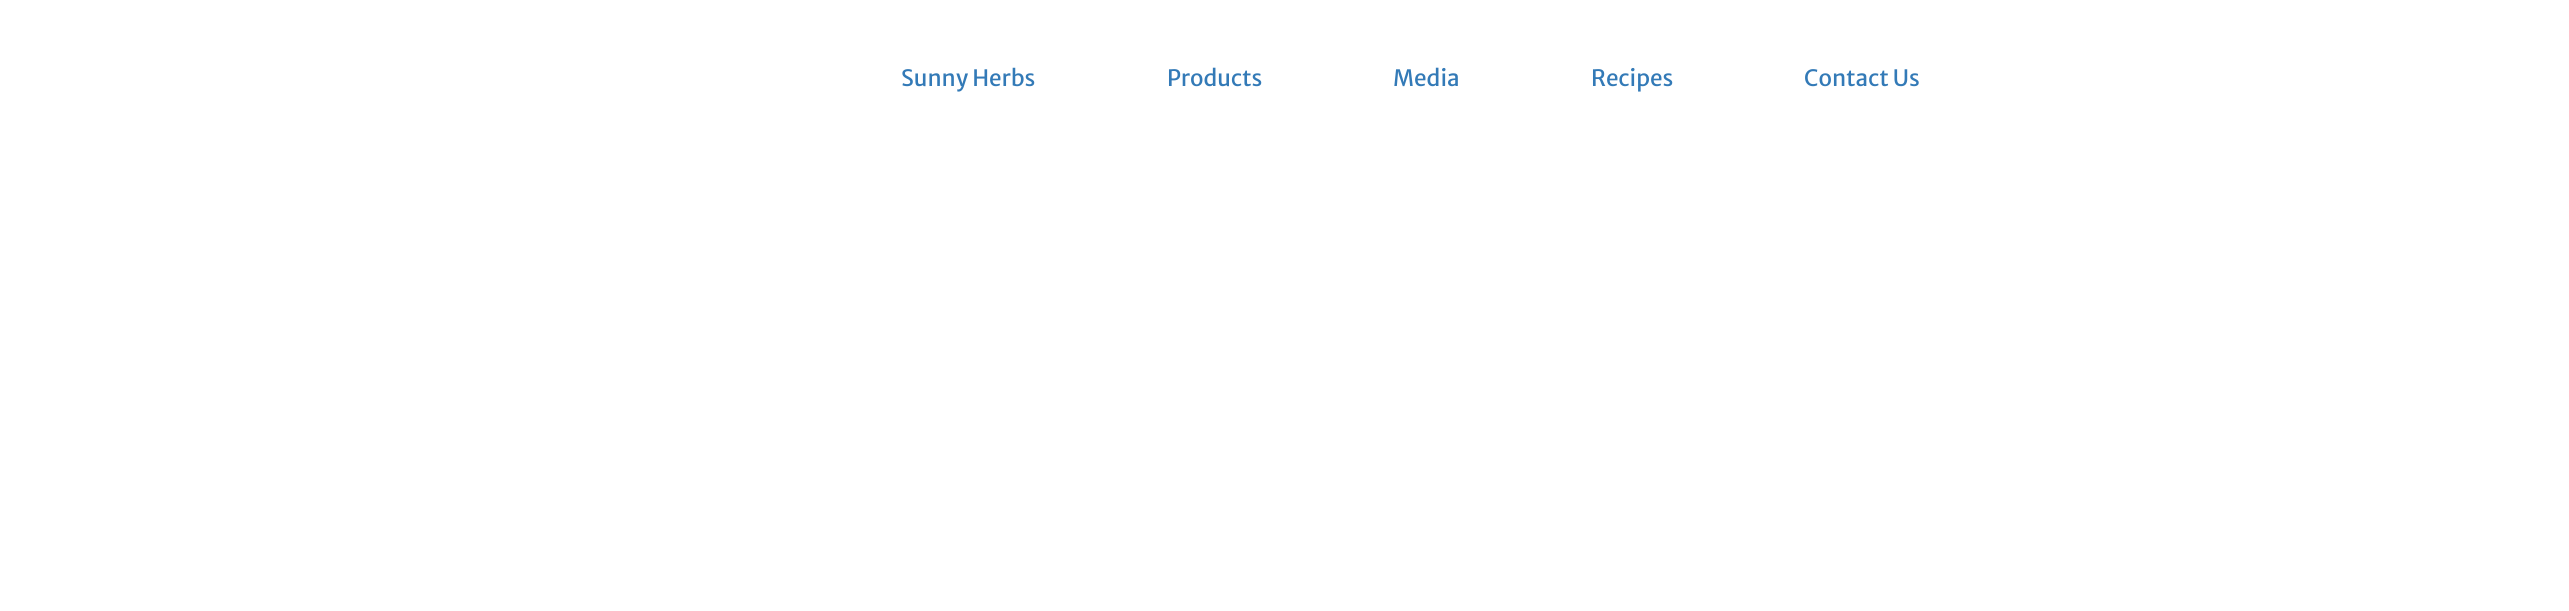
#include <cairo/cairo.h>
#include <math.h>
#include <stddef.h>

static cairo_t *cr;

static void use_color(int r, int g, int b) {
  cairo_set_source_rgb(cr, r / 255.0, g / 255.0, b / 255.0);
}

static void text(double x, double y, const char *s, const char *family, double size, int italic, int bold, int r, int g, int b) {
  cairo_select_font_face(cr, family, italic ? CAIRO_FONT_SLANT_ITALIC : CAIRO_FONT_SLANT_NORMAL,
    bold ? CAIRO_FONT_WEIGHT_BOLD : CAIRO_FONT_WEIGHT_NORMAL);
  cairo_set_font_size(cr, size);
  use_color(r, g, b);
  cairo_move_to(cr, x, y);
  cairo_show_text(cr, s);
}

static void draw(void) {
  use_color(255, 255, 255);
  cairo_paint(cr);
  text(901, 86, "Sunny Herbs", "Merriweather Sans", 22.5, 0, 0, 51, 122, 183);
  text(1167, 86, "Products", "Merriweather Sans", 22.5, 0, 0, 51, 122, 183);
  text(1393, 86, "Media", "Merriweather Sans", 22.5, 0, 0, 51, 122, 183);
  text(1591, 86, "Recipes", "Merriweather Sans", 22.5, 0, 0, 51, 122, 183);
  text(1804, 86, "Contact Us", "Merriweather Sans", 22.5, 0, 0, 51, 122, 183);
}

int main(void) {
  cairo_surface_t *surface = cairo_image_surface_create(CAIRO_FORMAT_RGB24, 2569, 611);
  cr = cairo_create(surface);
  cairo_font_options_t *options = cairo_font_options_create();
  cairo_font_options_set_hint_metrics(options, CAIRO_HINT_METRICS_OFF);
  cairo_font_options_set_hint_style(options, CAIRO_HINT_STYLE_NONE);
  cairo_set_font_options(cr, options);
  cairo_set_miter_limit(cr, 4);
  draw();
  cairo_surface_write_to_png(surface, "out.png");
  cairo_font_options_destroy(options);
  cairo_destroy(cr);
  cairo_surface_destroy(surface);
  return 0;
}
